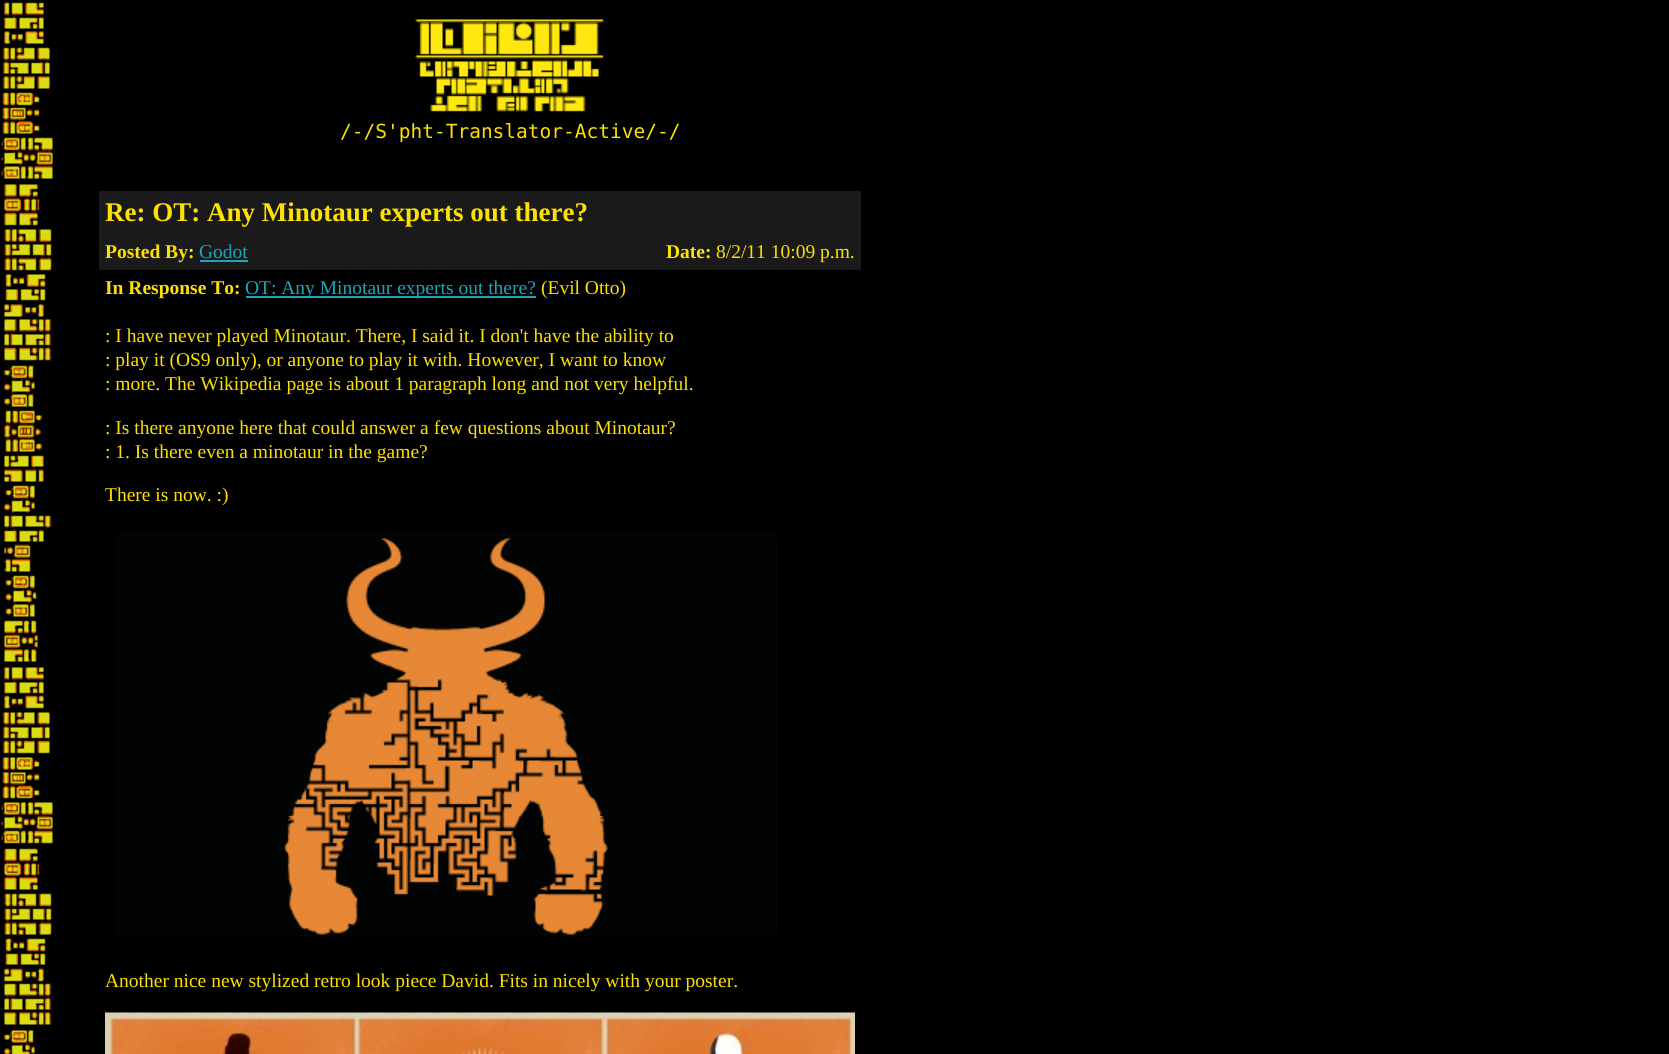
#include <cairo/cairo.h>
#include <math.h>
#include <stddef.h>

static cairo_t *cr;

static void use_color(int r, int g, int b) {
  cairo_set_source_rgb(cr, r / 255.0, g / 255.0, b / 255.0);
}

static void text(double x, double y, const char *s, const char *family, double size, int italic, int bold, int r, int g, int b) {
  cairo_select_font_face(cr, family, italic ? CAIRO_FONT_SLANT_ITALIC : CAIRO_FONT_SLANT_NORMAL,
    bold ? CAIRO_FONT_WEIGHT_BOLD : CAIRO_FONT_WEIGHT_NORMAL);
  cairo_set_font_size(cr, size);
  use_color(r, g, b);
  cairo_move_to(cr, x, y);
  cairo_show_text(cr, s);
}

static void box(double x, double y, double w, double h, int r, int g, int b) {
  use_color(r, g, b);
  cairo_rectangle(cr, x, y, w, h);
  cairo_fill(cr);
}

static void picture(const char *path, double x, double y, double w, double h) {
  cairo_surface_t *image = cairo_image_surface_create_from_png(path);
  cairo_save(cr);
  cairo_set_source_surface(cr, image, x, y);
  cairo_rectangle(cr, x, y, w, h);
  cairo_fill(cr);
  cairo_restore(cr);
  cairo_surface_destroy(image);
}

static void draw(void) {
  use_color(0, 0, 0);
  cairo_paint(cr);
  picture("img_01.png", 1, 2, 52, 1052);
  picture("img_02.png", 415, 19, 189, 93);
  box(99, 191, 762, 43, 26, 26, 26);
  box(99, 234, 762, 36, 26, 26, 26);
  box(200, 260, 48, 2, 26, 167, 188);
  box(246, 296, 290, 2, 26, 167, 188);
  picture("img_03.png", 116, 531, 662, 406);
  picture("img_04.png", 105, 1012, 750, 42);
  text(340, 138, "/-/S'pht-Translator-Active/-/", "DejaVu Sans Mono", 19.5, 0, 0, 253, 225, 0);
  text(105, 221, "Re: OT: Any Minotaur experts out there?", "Liberation Serif", 27, 0, 1, 253, 225, 0);
  text(105, 258, "Posted By:", "Liberation Serif", 19.5, 0, 1, 253, 225, 0);
  text(199, 258, "Godot", "Liberation Serif", 19.5, 0, 0, 26, 167, 188);
  text(666, 258, "Date:", "Liberation Serif", 19.5, 0, 1, 253, 225, 0);
  text(716, 258, "8/2/11 10:09 p.m.", "Liberation Serif", 19.5, 0, 0, 253, 225, 0);
  text(105, 294, "In Response To:", "Liberation Serif", 19.5, 0, 1, 253, 225, 0);
  text(245, 294, "OT: Any Minotaur experts out there?", "Liberation Serif", 19.5, 0, 0, 26, 167, 188);
  text(541, 294, "(Evil Otto)", "Liberation Serif", 19.5, 0, 0, 253, 225, 0);
  text(105, 342, ": I have never played Minotaur. There, I said it. I don't have the ability to", "Liberation Serif", 19.5, 0, 0, 253, 225, 0);
  text(105, 366, ": play it (OS9 only), or anyone to play it with. However, I want to know", "Liberation Serif", 19.5, 0, 0, 253, 225, 0);
  text(105, 390, ": more. The Wikipedia page is about 1 paragraph long and not very helpful.", "Liberation Serif", 19.5, 0, 0, 253, 225, 0);
  text(105, 434, ": Is there anyone here that could answer a few questions about Minotaur?", "Liberation Serif", 19.5, 0, 0, 253, 225, 0);
  text(105, 458, ": 1. Is there even a minotaur in the game?", "Liberation Serif", 19.5, 0, 0, 253, 225, 0);
  text(105, 501, "There is now. :)", "Liberation Serif", 19.5, 0, 0, 253, 225, 0);
  text(105, 987, "Another nice new stylized retro look piece David. Fits in nicely with your poster.", "Liberation Serif", 19.5, 0, 0, 253, 225, 0);
}

int main(void) {
  cairo_surface_t *surface = cairo_image_surface_create(CAIRO_FORMAT_RGB24, 1669, 1054);
  cr = cairo_create(surface);
  cairo_font_options_t *options = cairo_font_options_create();
  cairo_font_options_set_hint_metrics(options, CAIRO_HINT_METRICS_OFF);
  cairo_font_options_set_hint_style(options, CAIRO_HINT_STYLE_NONE);
  cairo_set_font_options(cr, options);
  cairo_set_miter_limit(cr, 4);
  draw();
  cairo_surface_write_to_png(surface, "out.png");
  cairo_font_options_destroy(options);
  cairo_destroy(cr);
  cairo_surface_destroy(surface);
  return 0;
}
